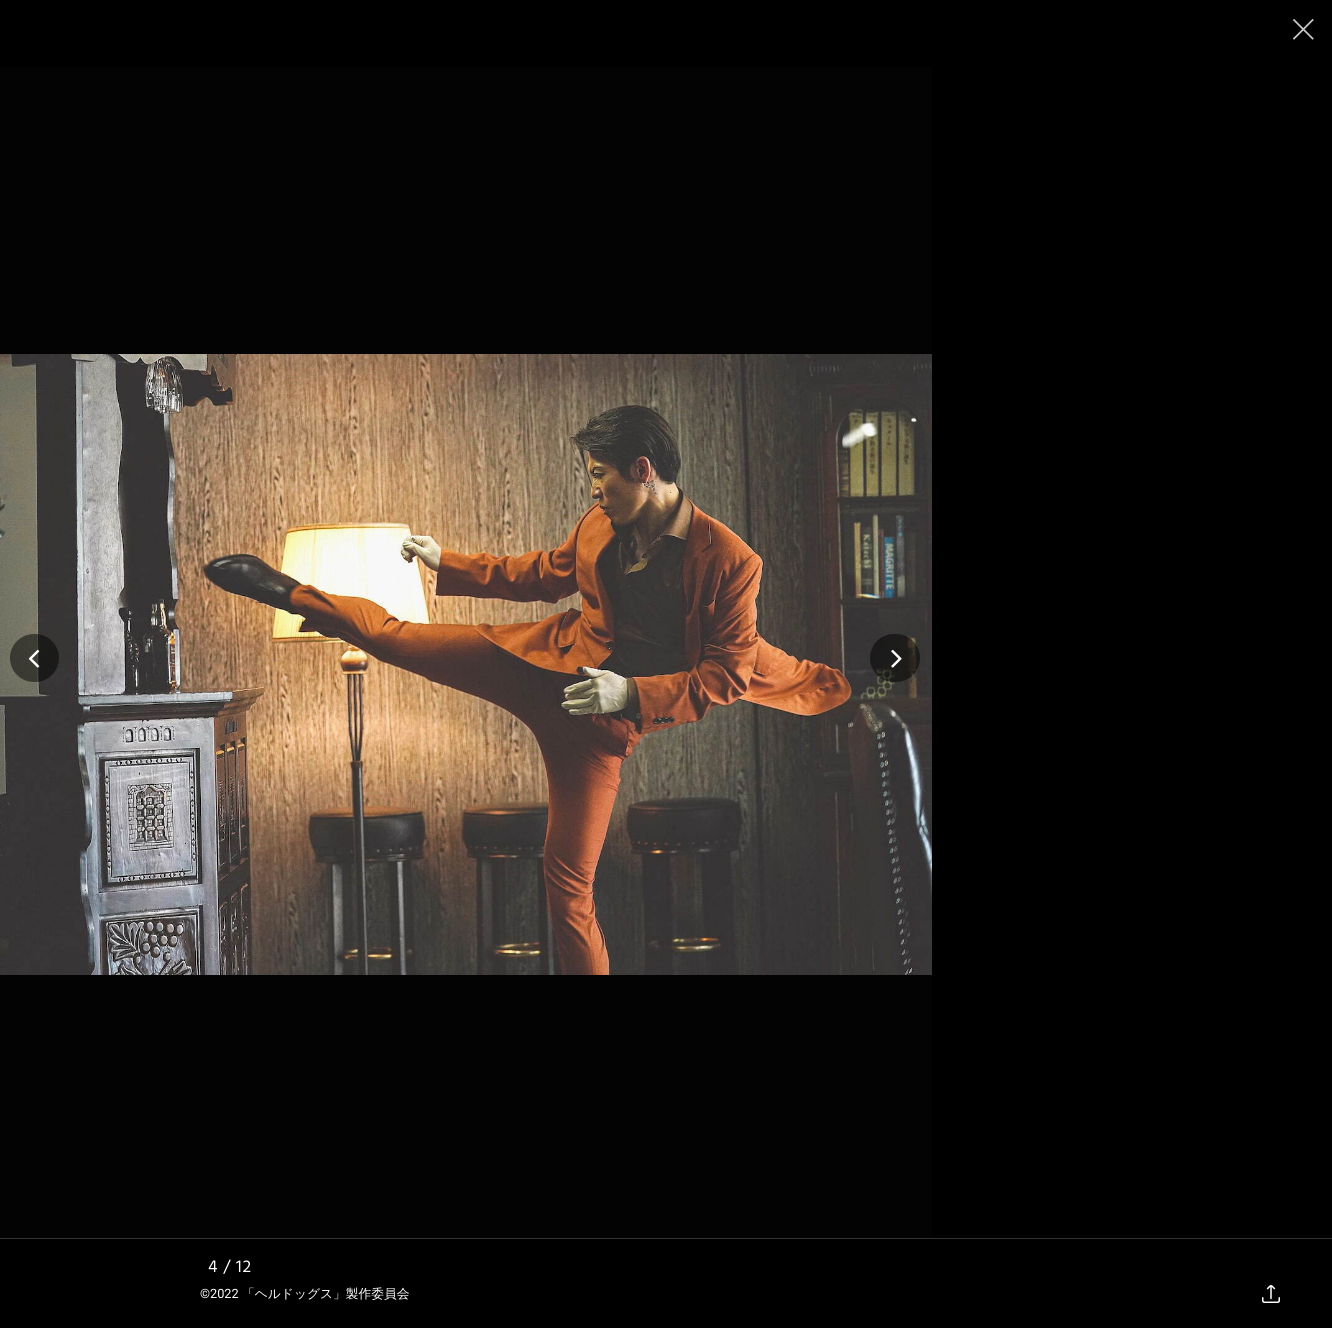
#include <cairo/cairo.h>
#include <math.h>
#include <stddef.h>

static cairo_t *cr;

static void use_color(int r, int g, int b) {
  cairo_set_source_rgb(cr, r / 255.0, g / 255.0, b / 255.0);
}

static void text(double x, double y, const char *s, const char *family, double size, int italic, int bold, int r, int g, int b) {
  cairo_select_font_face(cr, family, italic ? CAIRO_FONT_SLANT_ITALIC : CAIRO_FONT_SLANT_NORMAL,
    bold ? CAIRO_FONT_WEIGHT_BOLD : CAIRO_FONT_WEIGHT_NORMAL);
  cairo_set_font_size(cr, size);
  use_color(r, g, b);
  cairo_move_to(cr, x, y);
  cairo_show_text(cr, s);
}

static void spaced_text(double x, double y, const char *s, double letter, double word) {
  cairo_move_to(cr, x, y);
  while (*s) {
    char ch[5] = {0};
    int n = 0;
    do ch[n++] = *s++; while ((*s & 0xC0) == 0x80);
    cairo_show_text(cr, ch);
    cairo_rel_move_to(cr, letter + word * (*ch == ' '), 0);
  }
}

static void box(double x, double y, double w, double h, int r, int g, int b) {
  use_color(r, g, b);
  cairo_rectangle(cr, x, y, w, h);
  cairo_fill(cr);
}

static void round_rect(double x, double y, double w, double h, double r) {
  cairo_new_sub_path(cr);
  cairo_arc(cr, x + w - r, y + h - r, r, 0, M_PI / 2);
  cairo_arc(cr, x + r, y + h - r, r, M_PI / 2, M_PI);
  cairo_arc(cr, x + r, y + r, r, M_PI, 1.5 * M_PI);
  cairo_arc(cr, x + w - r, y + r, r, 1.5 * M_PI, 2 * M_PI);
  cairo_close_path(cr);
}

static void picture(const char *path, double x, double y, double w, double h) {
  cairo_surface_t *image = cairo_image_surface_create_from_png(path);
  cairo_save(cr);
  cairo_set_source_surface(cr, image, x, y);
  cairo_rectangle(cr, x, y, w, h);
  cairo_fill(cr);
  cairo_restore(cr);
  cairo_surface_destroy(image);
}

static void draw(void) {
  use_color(0, 0, 0);
  cairo_paint(cr);
  picture("img_01.png", 1292, 18, 22, 22);
  box(0, 66, 932, 1172, 3, 3, 3);
  picture("img_02.png", 0, 354, 932, 621);
  cairo_set_source_rgba(cr, 0, 0, 0, 0.5);
  round_rect(10, 634, 49, 48, 24);
  cairo_fill(cr);
  picture("img_03.png", 28, 649, 12, 19);
  round_rect(870, 634, 50, 48, 24);
  cairo_fill(cr);
  picture("img_04.png", 891, 649, 11, 19);
  box(0, 1238, 1332, 1, 51, 51, 51);
  picture("img_05.png", 1262, 1285, 18, 18);
  cairo_select_font_face(cr, "Hind", CAIRO_FONT_SLANT_NORMAL, CAIRO_FONT_WEIGHT_NORMAL);
  cairo_set_font_size(cr, 17.5);
  use_color(255, 255, 255);
  spaced_text(208, 1272, "4 / 12", 0.75, 0);
  text(200, 1298, "©2022", "Roboto", 12.75, 0, 0, 255, 255, 255);
  text(242, 1298, "「ヘルドッグス」製作委員会", "WenQuanYi Zen Hei Medium", 12.75, 0, 0, 255, 255, 255);
}

int main(void) {
  cairo_surface_t *surface = cairo_image_surface_create(CAIRO_FORMAT_RGB24, 1332, 1328);
  cr = cairo_create(surface);
  cairo_font_options_t *options = cairo_font_options_create();
  cairo_font_options_set_hint_metrics(options, CAIRO_HINT_METRICS_OFF);
  cairo_font_options_set_hint_style(options, CAIRO_HINT_STYLE_NONE);
  cairo_set_font_options(cr, options);
  cairo_set_miter_limit(cr, 4);
  draw();
  cairo_surface_write_to_png(surface, "out.png");
  cairo_font_options_destroy(options);
  cairo_destroy(cr);
  cairo_surface_destroy(surface);
  return 0;
}
